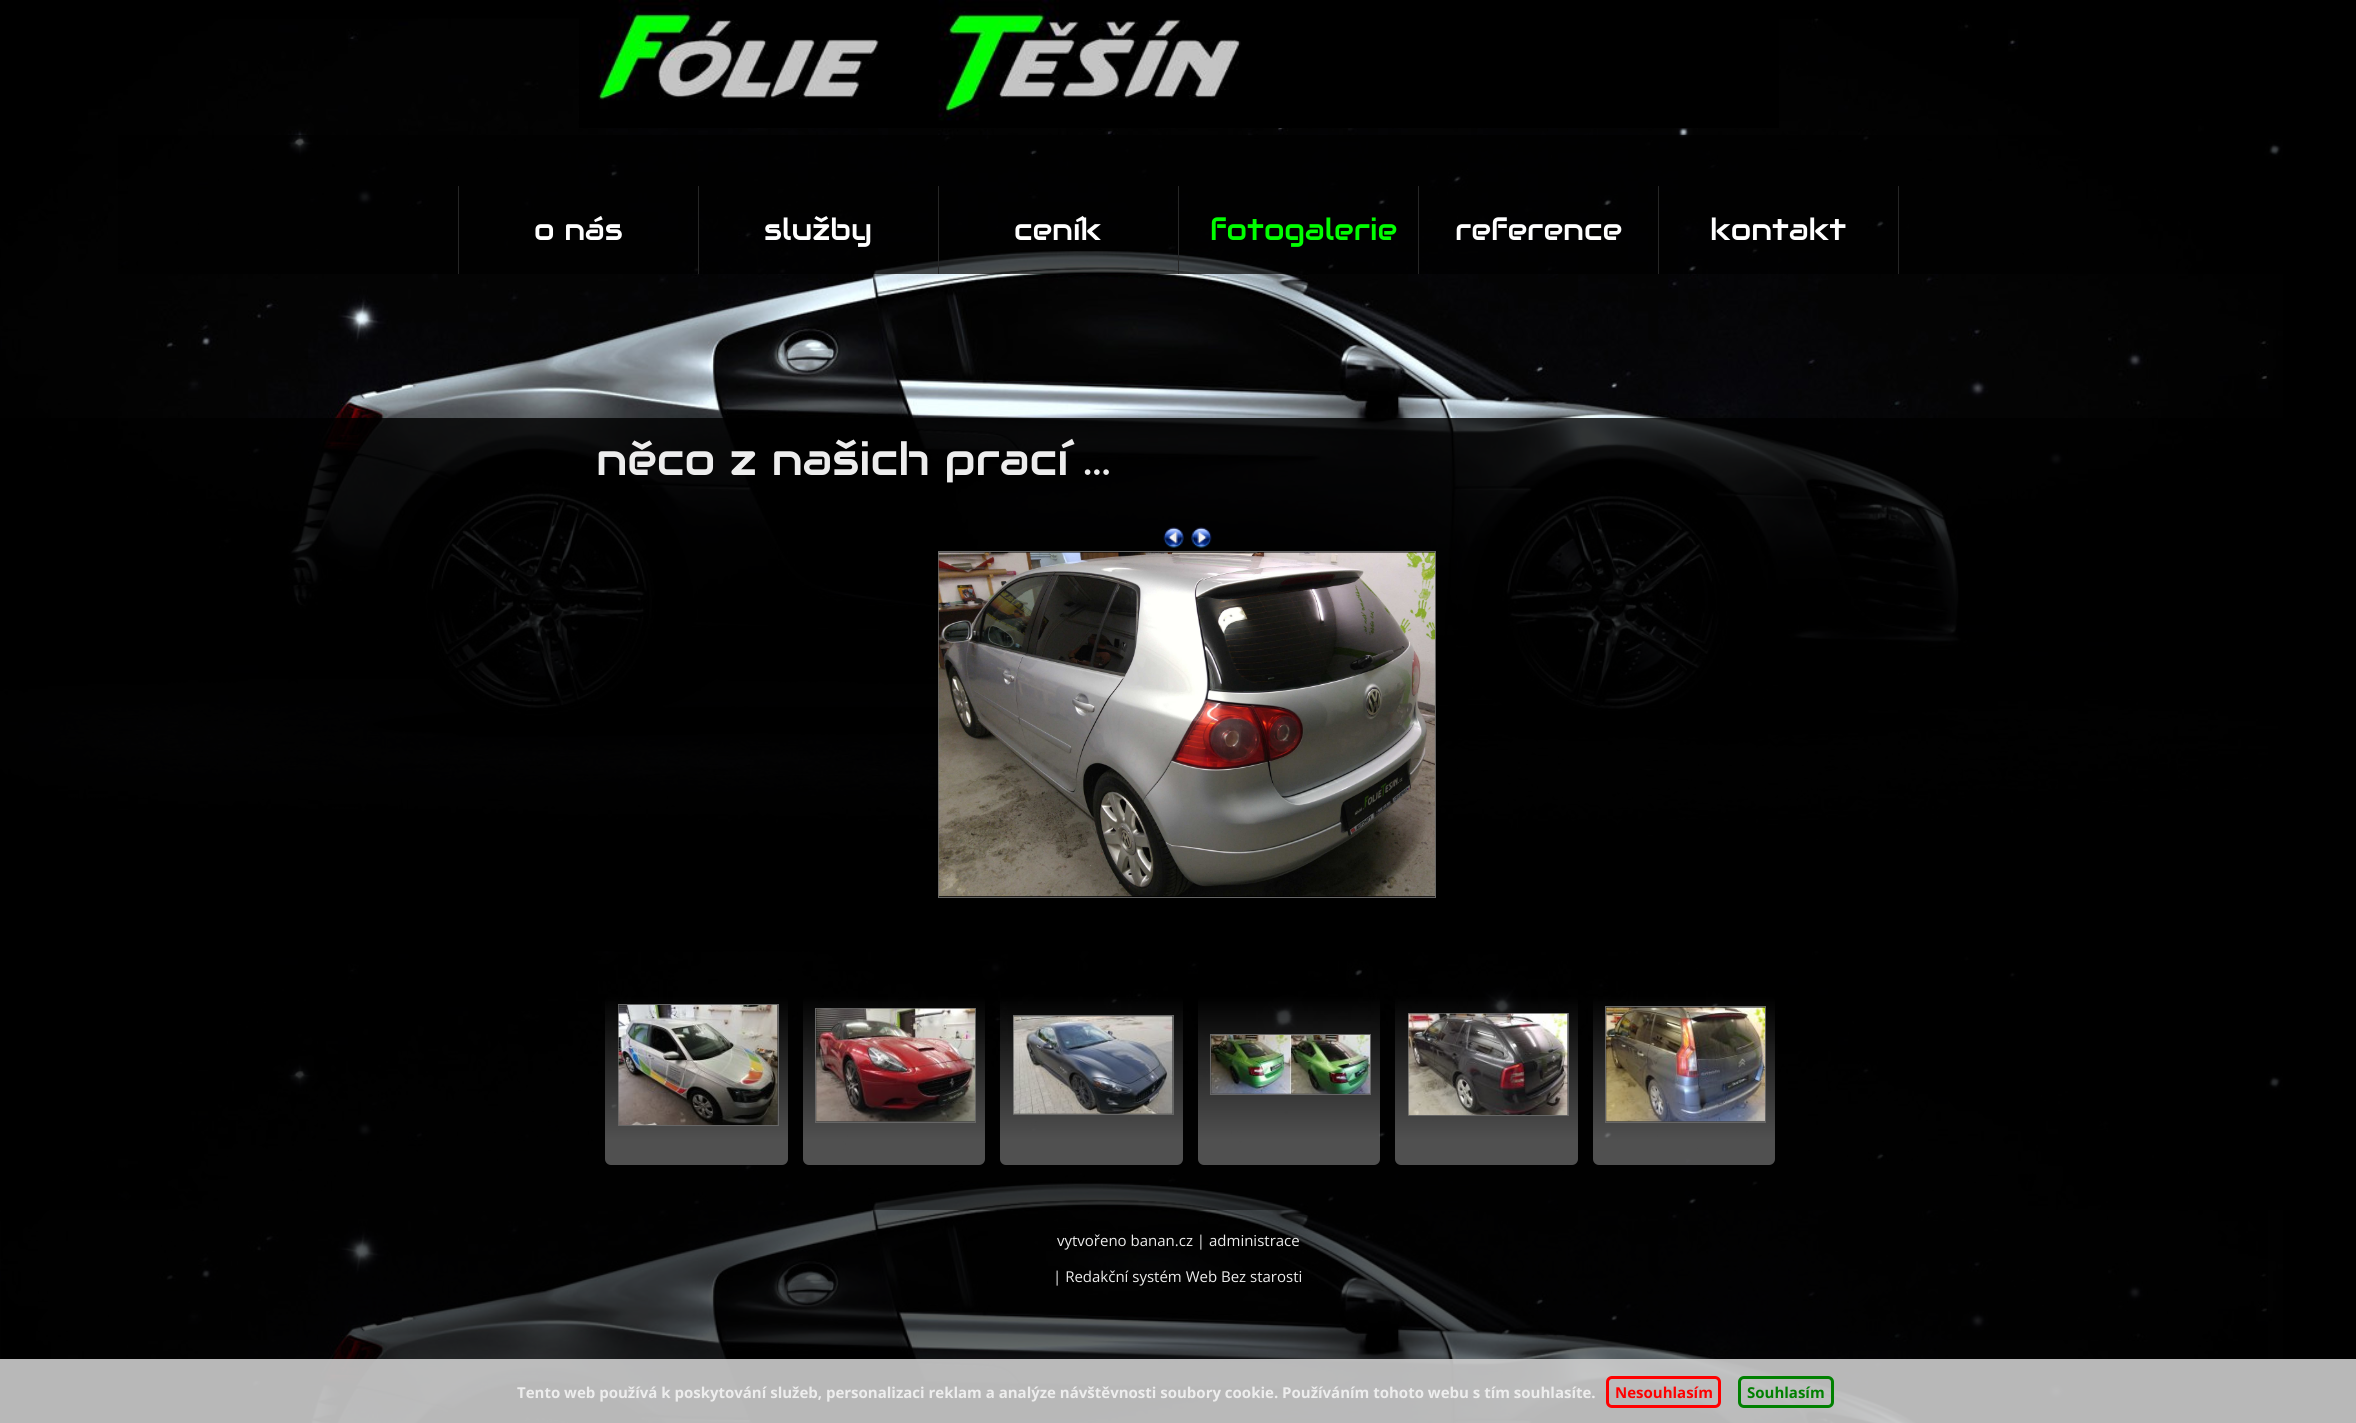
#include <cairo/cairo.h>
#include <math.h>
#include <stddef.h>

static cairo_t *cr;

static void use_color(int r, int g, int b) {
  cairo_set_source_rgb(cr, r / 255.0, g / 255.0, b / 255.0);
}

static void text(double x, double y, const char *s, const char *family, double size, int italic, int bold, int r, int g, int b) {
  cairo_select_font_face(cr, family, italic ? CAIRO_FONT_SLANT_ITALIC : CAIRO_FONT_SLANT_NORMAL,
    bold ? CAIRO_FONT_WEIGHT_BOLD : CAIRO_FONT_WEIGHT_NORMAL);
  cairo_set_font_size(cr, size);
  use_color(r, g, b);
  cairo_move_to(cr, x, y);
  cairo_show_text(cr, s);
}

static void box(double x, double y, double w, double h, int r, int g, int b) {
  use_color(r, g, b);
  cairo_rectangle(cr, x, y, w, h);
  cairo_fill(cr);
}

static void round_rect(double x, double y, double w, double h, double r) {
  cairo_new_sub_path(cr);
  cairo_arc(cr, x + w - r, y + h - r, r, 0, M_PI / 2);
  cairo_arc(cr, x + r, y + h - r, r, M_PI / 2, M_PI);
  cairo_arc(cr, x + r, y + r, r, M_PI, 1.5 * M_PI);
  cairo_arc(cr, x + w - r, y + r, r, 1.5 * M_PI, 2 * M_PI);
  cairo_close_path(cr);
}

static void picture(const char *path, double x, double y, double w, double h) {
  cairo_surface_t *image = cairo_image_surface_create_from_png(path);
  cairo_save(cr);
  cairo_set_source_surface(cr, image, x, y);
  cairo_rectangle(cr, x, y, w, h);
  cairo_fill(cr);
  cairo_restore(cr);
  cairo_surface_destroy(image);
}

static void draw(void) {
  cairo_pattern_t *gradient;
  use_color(0, 0, 0);
  cairo_paint(cr);
  picture("img_01.png", 0, 18, 2283, 1405);
  box(579, 18, 1200, 110, 0, 0, 0);
  picture("img_02.png", 598, 0, 643, 121);
  cairo_set_source_rgba(cr, 0, 0, 0, 0.7);
  cairo_rectangle(cr, 118, 135, 2165, 139);
  cairo_fill(cr);
  box(698, 186, 1, 88, 38, 38, 38);
  box(458, 186, 1, 88, 38, 38, 38);
  box(938, 186, 1, 88, 38, 38, 38);
  box(1178, 186, 1, 88, 38, 38, 38);
  box(1418, 186, 1, 88, 38, 38, 38);
  box(1658, 186, 1, 88, 38, 38, 38);
  box(1898, 186, 1, 88, 38, 38, 38);
  cairo_set_source_rgba(cr, 0, 0, 0, 0.8);
  cairo_rectangle(cr, 0, 418, 2283, 792);
  cairo_fill(cr);
  picture("img_03.png", 1163, 527, 21, 21);
  picture("img_04.png", 1191, 527, 21, 21);
  cairo_rectangle(cr, 938.5, 551.5, 497, 346);
  use_color(102, 102, 102);
  cairo_set_line_width(cr, 1);
  cairo_stroke(cr);
  picture("img_05.png", 938, 552, 497, 345);
  gradient = cairo_pattern_create_linear(696, 996, 696, 1165);
  cairo_pattern_add_color_stop_rgba(gradient, 0, 1, 1, 1, 0);
  cairo_pattern_add_color_stop_rgba(gradient, 0.85, 1, 1, 1, 0.31);
  cairo_pattern_add_color_stop_rgba(gradient, 1, 1, 1, 1, 0.31);
  cairo_set_source(cr, gradient);
  cairo_pattern_destroy(gradient);
  round_rect(605, 996, 183, 169, 6);
  cairo_fill(cr);
  cairo_rectangle(cr, 618.5, 1004.5, 160, 121);
  use_color(102, 102, 102);
  cairo_stroke(cr);
  picture("img_06.png", 618, 1005, 160, 120);
  gradient = cairo_pattern_create_linear(894, 996, 894, 1165);
  cairo_pattern_add_color_stop_rgba(gradient, 0, 1, 1, 1, 0);
  cairo_pattern_add_color_stop_rgba(gradient, 0.85, 1, 1, 1, 0.31);
  cairo_pattern_add_color_stop_rgba(gradient, 1, 1, 1, 1, 0.31);
  cairo_set_source(cr, gradient);
  cairo_pattern_destroy(gradient);
  round_rect(803, 996, 182, 169, 6);
  cairo_fill(cr);
  cairo_rectangle(cr, 815.5, 1008.5, 160, 114);
  use_color(102, 102, 102);
  cairo_stroke(cr);
  picture("img_07.png", 816, 1008, 159, 114);
  gradient = cairo_pattern_create_linear(1091, 996, 1091, 1165);
  cairo_pattern_add_color_stop_rgba(gradient, 0, 1, 1, 1, 0);
  cairo_pattern_add_color_stop_rgba(gradient, 0.85, 1, 1, 1, 0.31);
  cairo_pattern_add_color_stop_rgba(gradient, 1, 1, 1, 1, 0.31);
  cairo_set_source(cr, gradient);
  cairo_pattern_destroy(gradient);
  round_rect(1000, 996, 183, 169, 6);
  cairo_fill(cr);
  cairo_rectangle(cr, 1013.5, 1015.5, 160, 99);
  use_color(102, 102, 102);
  cairo_stroke(cr);
  picture("img_08.png", 1013, 1016, 160, 98);
  gradient = cairo_pattern_create_linear(1289, 996, 1289, 1165);
  cairo_pattern_add_color_stop_rgba(gradient, 0, 1, 1, 1, 0);
  cairo_pattern_add_color_stop_rgba(gradient, 0.85, 1, 1, 1, 0.31);
  cairo_pattern_add_color_stop_rgba(gradient, 1, 1, 1, 1, 0.31);
  cairo_set_source(cr, gradient);
  cairo_pattern_destroy(gradient);
  round_rect(1198, 996, 182, 169, 6);
  cairo_fill(cr);
  cairo_rectangle(cr, 1210.5, 1034.5, 160, 60);
  use_color(102, 102, 102);
  cairo_stroke(cr);
  picture("img_09.png", 1211, 1035, 159, 59);
  gradient = cairo_pattern_create_linear(1486, 996, 1486, 1165);
  cairo_pattern_add_color_stop_rgba(gradient, 0, 1, 1, 1, 0);
  cairo_pattern_add_color_stop_rgba(gradient, 0.85, 1, 1, 1, 0.31);
  cairo_pattern_add_color_stop_rgba(gradient, 1, 1, 1, 1, 0.31);
  cairo_set_source(cr, gradient);
  cairo_pattern_destroy(gradient);
  round_rect(1395, 996, 183, 169, 6);
  cairo_fill(cr);
  cairo_rectangle(cr, 1408.5, 1013.5, 160, 102);
  use_color(102, 102, 102);
  cairo_stroke(cr);
  picture("img_10.png", 1408, 1013, 160, 102);
  gradient = cairo_pattern_create_linear(1684, 996, 1684, 1165);
  cairo_pattern_add_color_stop_rgba(gradient, 0, 1, 1, 1, 0);
  cairo_pattern_add_color_stop_rgba(gradient, 0.85, 1, 1, 1, 0.31);
  cairo_pattern_add_color_stop_rgba(gradient, 1, 1, 1, 1, 0.31);
  cairo_set_source(cr, gradient);
  cairo_pattern_destroy(gradient);
  round_rect(1593, 996, 182, 169, 6);
  cairo_fill(cr);
  cairo_rectangle(cr, 1605.5, 1006.5, 160, 116);
  use_color(102, 102, 102);
  cairo_stroke(cr);
  picture("img_11.png", 1606, 1007, 159, 115);
  gradient = cairo_pattern_create_linear(1178, 1210, 1178, 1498);
  cairo_pattern_add_color_stop_rgba(gradient, 0, 0, 0, 0, 0.65);
  cairo_pattern_add_color_stop_rgba(gradient, 0.43, 0, 0, 0, 0.65);
  cairo_pattern_add_color_stop_rgba(gradient, 1, 0, 0, 0, 0);
  cairo_set_source(cr, gradient);
  cairo_pattern_destroy(gradient);
  cairo_rectangle(cr, 1, 1210, 2267, 213);
  cairo_fill(cr);
  cairo_set_source_rgba(cr, 0.8, 0.8, 0.8, 0.9);
  cairo_rectangle(cr, 0, 1359, 2356, 64);
  cairo_fill(cr);
  round_rect(1607.5, 1377.5, 112, 29, 4.5);
  use_color(255, 0, 0);
  cairo_set_line_width(cr, 3);
  cairo_stroke(cr);
  round_rect(1739.5, 1377.5, 93, 29, 4.5);
  use_color(0, 128, 0);
  cairo_stroke(cr);
  text(534, 240, "o nás", "Audiowide", 30, 0, 0, 255, 255, 255);
  text(764, 240, "služby", "Audiowide", 30, 0, 0, 255, 255, 255);
  text(1014, 240, "ceník", "Audiowide", 30, 0, 0, 255, 255, 255);
  text(1210, 240, "fotogalerie", "Audiowide", 30, 0, 0, 0, 255, 0);
  text(1455, 240, "reference", "Audiowide", 30, 0, 0, 255, 255, 255);
  text(1710, 240, "kontakt", "Audiowide", 30, 0, 0, 255, 255, 255);
  text(596, 475, "něco z našich prací ...", "Audiowide", 45, 0, 0, 237, 237, 237);
  text(1057, 1246, "vytvořeno banan.cz | administrace", "Open Sans", 15, 0, 0, 237, 237, 237);
  text(1053, 1282, "| Redakční systém Web Bez starosti", "Open Sans", 15, 0, 0, 237, 237, 237);
  text(517, 1398, "Tento web používá k poskytování služeb, personalizaci reklam a analýze návštěvnosti soubory cookie. Používáním tohoto webu s tím souhlasíte.", "Open Sans", 15, 0, 1, 237, 237, 237);
  text(1615, 1398, "Nesouhlasím", "Open Sans", 15, 0, 1, 255, 0, 0);
  text(1747, 1398, "Souhlasím", "Open Sans", 15, 0, 1, 0, 128, 0);
}

int main(void) {
  cairo_surface_t *surface = cairo_image_surface_create(CAIRO_FORMAT_RGB24, 2356, 1423);
  cr = cairo_create(surface);
  cairo_font_options_t *options = cairo_font_options_create();
  cairo_font_options_set_hint_metrics(options, CAIRO_HINT_METRICS_OFF);
  cairo_font_options_set_hint_style(options, CAIRO_HINT_STYLE_NONE);
  cairo_set_font_options(cr, options);
  cairo_set_miter_limit(cr, 4);
  draw();
  cairo_surface_write_to_png(surface, "out.png");
  cairo_font_options_destroy(options);
  cairo_destroy(cr);
  cairo_surface_destroy(surface);
  return 0;
}
